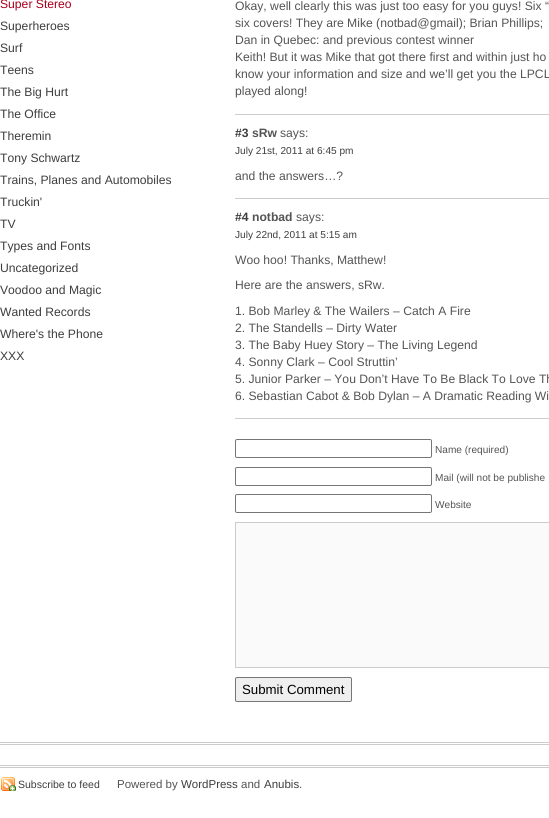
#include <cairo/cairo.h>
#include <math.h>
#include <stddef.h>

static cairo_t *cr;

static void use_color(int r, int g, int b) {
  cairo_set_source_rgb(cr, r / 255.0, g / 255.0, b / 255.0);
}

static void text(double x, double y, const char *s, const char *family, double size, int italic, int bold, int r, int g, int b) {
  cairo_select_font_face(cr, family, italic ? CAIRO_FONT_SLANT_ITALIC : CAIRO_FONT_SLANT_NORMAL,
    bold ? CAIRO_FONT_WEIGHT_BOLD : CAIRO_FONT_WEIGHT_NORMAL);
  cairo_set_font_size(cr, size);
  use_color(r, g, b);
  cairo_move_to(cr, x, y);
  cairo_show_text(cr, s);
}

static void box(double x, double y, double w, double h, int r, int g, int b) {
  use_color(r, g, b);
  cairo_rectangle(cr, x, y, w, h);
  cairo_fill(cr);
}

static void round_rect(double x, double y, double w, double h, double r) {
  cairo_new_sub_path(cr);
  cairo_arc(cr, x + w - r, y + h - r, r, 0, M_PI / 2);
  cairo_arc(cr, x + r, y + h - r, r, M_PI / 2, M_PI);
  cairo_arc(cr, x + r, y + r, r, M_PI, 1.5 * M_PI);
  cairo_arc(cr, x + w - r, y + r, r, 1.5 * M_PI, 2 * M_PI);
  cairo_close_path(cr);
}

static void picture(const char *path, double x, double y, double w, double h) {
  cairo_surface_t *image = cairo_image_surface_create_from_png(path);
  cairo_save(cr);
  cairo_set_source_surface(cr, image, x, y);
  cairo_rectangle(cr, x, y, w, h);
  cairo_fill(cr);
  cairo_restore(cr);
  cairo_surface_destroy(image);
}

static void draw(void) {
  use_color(255, 255, 255);
  cairo_paint(cr);
  box(235, 114, 314, 1, 204, 204, 204);
  box(235, 198, 314, 1, 204, 204, 204);
  box(235, 418, 314, 1, 204, 204, 204);
  round_rect(235.5, 439.5, 196, 18, 1.5);
  use_color(118, 118, 118);
  cairo_set_line_width(cr, 1);
  cairo_stroke(cr);
  round_rect(235.5, 467.5, 196, 18, 1.5);
  cairo_stroke(cr);
  round_rect(235.5, 494.5, 196, 18, 1.5);
  cairo_stroke(cr);
  use_color(250, 250, 250);
  cairo_rectangle(cr, 235.5, 522.5, 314, 145);
  cairo_fill_preserve(cr);
  use_color(204, 204, 204);
  cairo_stroke(cr);
  use_color(239, 239, 239);
  round_rect(235.5, 677.5, 116, 24, 1.5);
  cairo_fill_preserve(cr);
  use_color(118, 118, 118);
  cairo_stroke(cr);
  box(0, 742, 549, 1, 204, 204, 204);
  box(0, 744, 549, 1, 204, 204, 204);
  box(0, 765, 549, 1, 204, 204, 204);
  box(0, 767, 549, 1, 204, 204, 204);
  picture("img_01.png", 1, 777, 15, 14);
  text(0, 8, "Super Stereo", "Liberation Sans", 12.15, 0, 0, 168, 0, 28);
  text(0, 30, "Superheroes", "Liberation Sans", 12.15, 0, 0, 61, 61, 61);
  text(0, 52, "Surf", "Liberation Sans", 12.15, 0, 0, 61, 61, 61);
  text(0, 74, "Teens", "Liberation Sans", 12.15, 0, 0, 61, 61, 61);
  text(0, 96, "The Big Hurt", "Liberation Sans", 12.15, 0, 0, 61, 61, 61);
  text(0, 118, "The Office", "Liberation Sans", 12.15, 0, 0, 61, 61, 61);
  text(0, 140, "Theremin", "Liberation Sans", 12.15, 0, 0, 61, 61, 61);
  text(0, 162, "Tony Schwartz", "Liberation Sans", 12.15, 0, 0, 61, 61, 61);
  text(0, 184, "Trains, Planes and Automobiles", "Liberation Sans", 12.15, 0, 0, 61, 61, 61);
  text(0, 206, "Truckin'", "Liberation Sans", 12.15, 0, 0, 61, 61, 61);
  text(0, 228, "TV", "Liberation Sans", 12.15, 0, 0, 61, 61, 61);
  text(0, 250, "Types and Fonts", "Liberation Sans", 12.15, 0, 0, 61, 61, 61);
  text(0, 272, "Uncategorized", "Liberation Sans", 12.15, 0, 0, 61, 61, 61);
  text(0, 294, "Voodoo and Magic", "Liberation Sans", 12.15, 0, 0, 61, 61, 61);
  text(0, 316, "Wanted Records", "Liberation Sans", 12.15, 0, 0, 61, 61, 61);
  text(0, 338, "Where's the Phone", "Liberation Sans", 12.15, 0, 0, 61, 61, 61);
  text(0, 360, "XXX", "Liberation Sans", 12.15, 0, 0, 61, 61, 61);
  text(235, 10, "Okay, well clearly this was just too easy for you guys! Six “", "Liberation Sans", 12.15, 0, 0, 84, 84, 84);
  text(235, 27, "six covers! They are Mike (notbad@gmail); Brian Phillips;", "Liberation Sans", 12.15, 0, 0, 84, 84, 84);
  text(235, 44, "Dan in Quebec: and previous contest winner", "Liberation Sans", 12.15, 0, 0, 84, 84, 84);
  text(235, 61, "Keith! But it was Mike that got there first and within just ho", "Liberation Sans", 12.15, 0, 0, 84, 84, 84);
  text(235, 78, "know your information and size and we’ll get you the LPCL", "Liberation Sans", 12.15, 0, 0, 84, 84, 84);
  text(235, 95, "played along!", "Liberation Sans", 12.15, 0, 0, 84, 84, 84);
  text(235, 137, "#3", "Liberation Sans", 12.15, 0, 1, 61, 61, 61);
  text(252, 137, "sRw", "Liberation Sans", 12.15, 0, 1, 84, 84, 84);
  text(280, 137, "says:", "Liberation Sans", 12.15, 0, 0, 84, 84, 84);
  text(235, 154, "July 21st, 2011 at 6:45 pm", "Liberation Sans", 10.1, 0, 0, 61, 61, 61);
  text(235, 180, "and the answers…?", "Liberation Sans", 12.15, 0, 0, 84, 84, 84);
  text(235, 221, "#4", "Liberation Sans", 12.15, 0, 1, 61, 61, 61);
  text(252, 221, "notbad", "Liberation Sans", 12.15, 0, 1, 84, 84, 84);
  text(296, 221, "says:", "Liberation Sans", 12.15, 0, 0, 84, 84, 84);
  text(235, 238, "July 22nd, 2011 at 5:15 am", "Liberation Sans", 10.1, 0, 0, 61, 61, 61);
  text(235, 264, "Woo hoo! Thanks, Matthew!", "Liberation Sans", 12.15, 0, 0, 84, 84, 84);
  text(235, 289, "Here are the answers, sRw.", "Liberation Sans", 12.15, 0, 0, 84, 84, 84);
  text(235, 315, "1. Bob Marley & The Wailers – Catch A Fire", "Liberation Sans", 12.15, 0, 0, 84, 84, 84);
  text(235, 332, "2. The Standells – Dirty Water", "Liberation Sans", 12.15, 0, 0, 84, 84, 84);
  text(235, 349, "3. The Baby Huey Story – The Living Legend", "Liberation Sans", 12.15, 0, 0, 84, 84, 84);
  text(235, 366, "4. Sonny Clark – Cool Struttin’", "Liberation Sans", 12.15, 0, 0, 84, 84, 84);
  text(235, 383, "5. Junior Parker – You Don’t Have To Be Black To Love Th", "Liberation Sans", 12.15, 0, 0, 84, 84, 84);
  text(235, 400, "6. Sebastian Cabot & Bob Dylan – A Dramatic Reading Wi", "Liberation Sans", 12.15, 0, 0, 84, 84, 84);
  text(435, 453, "Name (required)", "Liberation Sans", 10.1, 0, 0, 84, 84, 84);
  text(435, 481, "Mail (will not be publishe", "Liberation Sans", 10.1, 0, 0, 84, 84, 84);
  text(435, 508, "Website", "Liberation Sans", 10.1, 0, 0, 84, 84, 84);
  text(242, 694, "Submit Comment", "Liberation Sans", 13.25, 0, 0, 0, 0, 0);
  text(18, 788, "Subscribe to feed", "Liberation Sans", 10.5, 0, 0, 61, 61, 61);
  text(117, 788, "Powered by", "Liberation Sans", 11.5, 0, 0, 84, 84, 84);
  text(181, 788, "WordPress", "Liberation Sans", 11.5, 0, 0, 61, 61, 61);
  text(241, 788, "and", "Liberation Sans", 11.5, 0, 0, 84, 84, 84);
  text(264, 788, "Anubis", "Liberation Sans", 11.5, 0, 0, 61, 61, 61);
  text(299, 788, ".", "Liberation Sans", 11.5, 0, 0, 84, 84, 84);
}

int main(void) {
  cairo_surface_t *surface = cairo_image_surface_create(CAIRO_FORMAT_RGB24, 549, 818);
  cr = cairo_create(surface);
  cairo_font_options_t *options = cairo_font_options_create();
  cairo_font_options_set_hint_metrics(options, CAIRO_HINT_METRICS_OFF);
  cairo_font_options_set_hint_style(options, CAIRO_HINT_STYLE_NONE);
  cairo_set_font_options(cr, options);
  cairo_set_miter_limit(cr, 4);
  draw();
  cairo_surface_write_to_png(surface, "out.png");
  cairo_font_options_destroy(options);
  cairo_destroy(cr);
  cairo_surface_destroy(surface);
  return 0;
}
